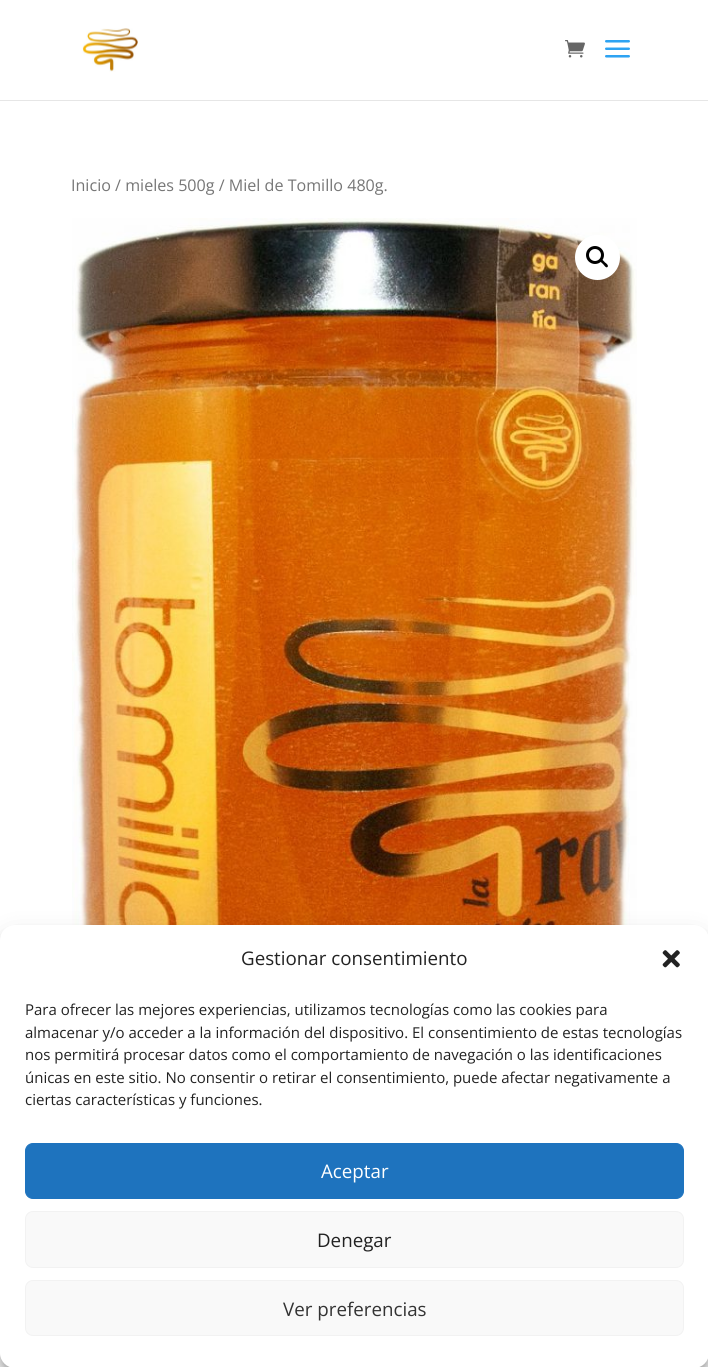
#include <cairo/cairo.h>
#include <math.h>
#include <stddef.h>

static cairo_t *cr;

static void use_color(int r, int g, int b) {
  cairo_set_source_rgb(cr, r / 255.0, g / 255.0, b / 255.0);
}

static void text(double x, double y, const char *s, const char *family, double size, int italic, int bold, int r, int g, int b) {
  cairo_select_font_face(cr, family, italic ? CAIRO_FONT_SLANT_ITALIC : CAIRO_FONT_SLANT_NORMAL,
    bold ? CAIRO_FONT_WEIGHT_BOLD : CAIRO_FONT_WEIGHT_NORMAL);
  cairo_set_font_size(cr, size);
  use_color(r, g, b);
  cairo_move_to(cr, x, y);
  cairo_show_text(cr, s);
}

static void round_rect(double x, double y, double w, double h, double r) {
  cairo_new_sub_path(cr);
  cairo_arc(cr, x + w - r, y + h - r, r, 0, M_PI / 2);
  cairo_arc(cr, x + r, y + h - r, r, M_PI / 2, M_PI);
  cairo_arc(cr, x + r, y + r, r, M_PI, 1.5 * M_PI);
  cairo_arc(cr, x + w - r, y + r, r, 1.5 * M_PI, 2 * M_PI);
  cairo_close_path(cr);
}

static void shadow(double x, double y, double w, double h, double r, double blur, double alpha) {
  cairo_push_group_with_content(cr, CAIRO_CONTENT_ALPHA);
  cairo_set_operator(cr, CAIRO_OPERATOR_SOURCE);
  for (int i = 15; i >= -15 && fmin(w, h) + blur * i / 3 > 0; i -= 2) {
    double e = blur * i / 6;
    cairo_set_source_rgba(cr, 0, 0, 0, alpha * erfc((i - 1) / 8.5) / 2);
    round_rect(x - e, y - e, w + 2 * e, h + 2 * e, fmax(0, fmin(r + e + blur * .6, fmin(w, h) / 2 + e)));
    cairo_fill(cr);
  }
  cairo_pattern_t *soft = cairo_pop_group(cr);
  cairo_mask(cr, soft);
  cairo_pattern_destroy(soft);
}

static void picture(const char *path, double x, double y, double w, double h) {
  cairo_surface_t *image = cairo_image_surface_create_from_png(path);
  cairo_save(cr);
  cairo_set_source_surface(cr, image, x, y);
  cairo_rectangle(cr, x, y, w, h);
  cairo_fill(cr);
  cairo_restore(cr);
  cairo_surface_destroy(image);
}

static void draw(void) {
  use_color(255, 255, 255);
  cairo_paint(cr);
  use_color(230, 230, 230);
  cairo_new_path(cr);
  cairo_move_to(cr, 0, 100);
  cairo_line_to(cr, 0, 101);
  cairo_line_to(cr, 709, 101);
  cairo_line_to(cr, 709, 1);
  cairo_line_to(cr, 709, 100);
  cairo_close_path(cr);
  cairo_fill(cr);
  picture("img_01.png", 82, 28, 56, 44);
  picture("img_02.png", 565, 40, 20, 18);
  picture("img_03.png", 605, 40, 25, 18);
  picture("img_04.png", 72, 218, 565, 707);
  use_color(255, 255, 255);
  cairo_arc(cr, 597.5, 257.5, 22.5, 0, 2 * M_PI);
  cairo_fill(cr);
  cairo_arc(cr, 595, 255, 7.5, 0, 2 * M_PI);
  use_color(0, 0, 0);
  cairo_set_line_width(cr, 3);
  cairo_stroke(cr);
  cairo_new_path(cr);
  cairo_move_to(cr, 600.5, 260);
  cairo_curve_to(cr, 602, 258.5, 604, 261.5, 605, 262.5);
  cairo_curve_to(cr, 606, 263, 609, 265.5, 607.5, 267);
  cairo_curve_to(cr, 606, 268.5, 604, 265, 603, 264);
  cairo_curve_to(cr, 602.5, 263.5, 599, 261, 600.5, 260);
  cairo_close_path(cr);
  cairo_fill(cr);
  use_color(0, 0, 0);
  shadow(0, 933, 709, 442, 15, 4, 0.23);
  shadow(0, 938, 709, 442, 15, 12.5, 0.19);
  use_color(255, 255, 255);
  round_rect(0, 925, 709, 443, 15);
  cairo_fill(cr);
  picture("img_05.png", 662, 950, 18, 18);
  use_color(30, 115, 190);
  round_rect(25.5, 1143.5, 658, 55, 7.5);
  cairo_fill_preserve(cr);
  cairo_set_line_width(cr, 1);
  cairo_stroke(cr);
  use_color(249, 249, 249);
  round_rect(25.5, 1211.5, 658, 56, 7.5);
  cairo_fill_preserve(cr);
  use_color(242, 242, 242);
  cairo_stroke(cr);
  use_color(249, 249, 249);
  round_rect(25.5, 1280.5, 658, 55, 7.5);
  cairo_fill_preserve(cr);
  use_color(242, 242, 242);
  cairo_stroke(cr);
  text(71, 191, "Inicio / mieles 500g / Miel de Tomillo 480g.", "Open Sans", 16.1, 0, 0, 118, 118, 118);
  text(241, 965, "Gestionar consentimiento", "Open Sans", 18.75, 0, 0, 34, 34, 34);
  text(25, 1015, "Para ofrecer las mejores experiencias, utilizamos tecnologías como las cookies para", "Open Sans", 15, 0, 0, 34, 34, 34);
  text(25, 1038, "almacenar y/o acceder a la información del dispositivo. El consentimiento de estas tecnologías", "Open Sans", 15, 0, 0, 34, 34, 34);
  text(25, 1060, "nos permitirá procesar datos como el comportamiento de navegación o las identificaciones", "Open Sans", 15, 0, 0, 34, 34, 34);
  text(25, 1083, "únicas en este sitio. No consentir o retirar el consentimiento, puede afectar negativamente a", "Open Sans", 15, 0, 0, 34, 34, 34);
  text(25, 1105, "ciertas características y funciones.", "Open Sans", 15, 0, 0, 34, 34, 34);
  text(321, 1178, "Aceptar", "Open Sans", 18.75, 0, 0, 255, 255, 255);
  text(317, 1247, "Denegar", "Open Sans", 18.75, 0, 0, 34, 34, 34);
  text(283, 1316, "Ver preferencias", "Open Sans", 18.75, 0, 0, 51, 51, 51);
}

int main(void) {
  cairo_surface_t *surface = cairo_image_surface_create(CAIRO_FORMAT_RGB24, 708, 1367);
  cr = cairo_create(surface);
  cairo_font_options_t *options = cairo_font_options_create();
  cairo_font_options_set_hint_metrics(options, CAIRO_HINT_METRICS_OFF);
  cairo_font_options_set_hint_style(options, CAIRO_HINT_STYLE_NONE);
  cairo_set_font_options(cr, options);
  cairo_set_miter_limit(cr, 4);
  draw();
  cairo_surface_write_to_png(surface, "out.png");
  cairo_font_options_destroy(options);
  cairo_destroy(cr);
  cairo_surface_destroy(surface);
  return 0;
}
